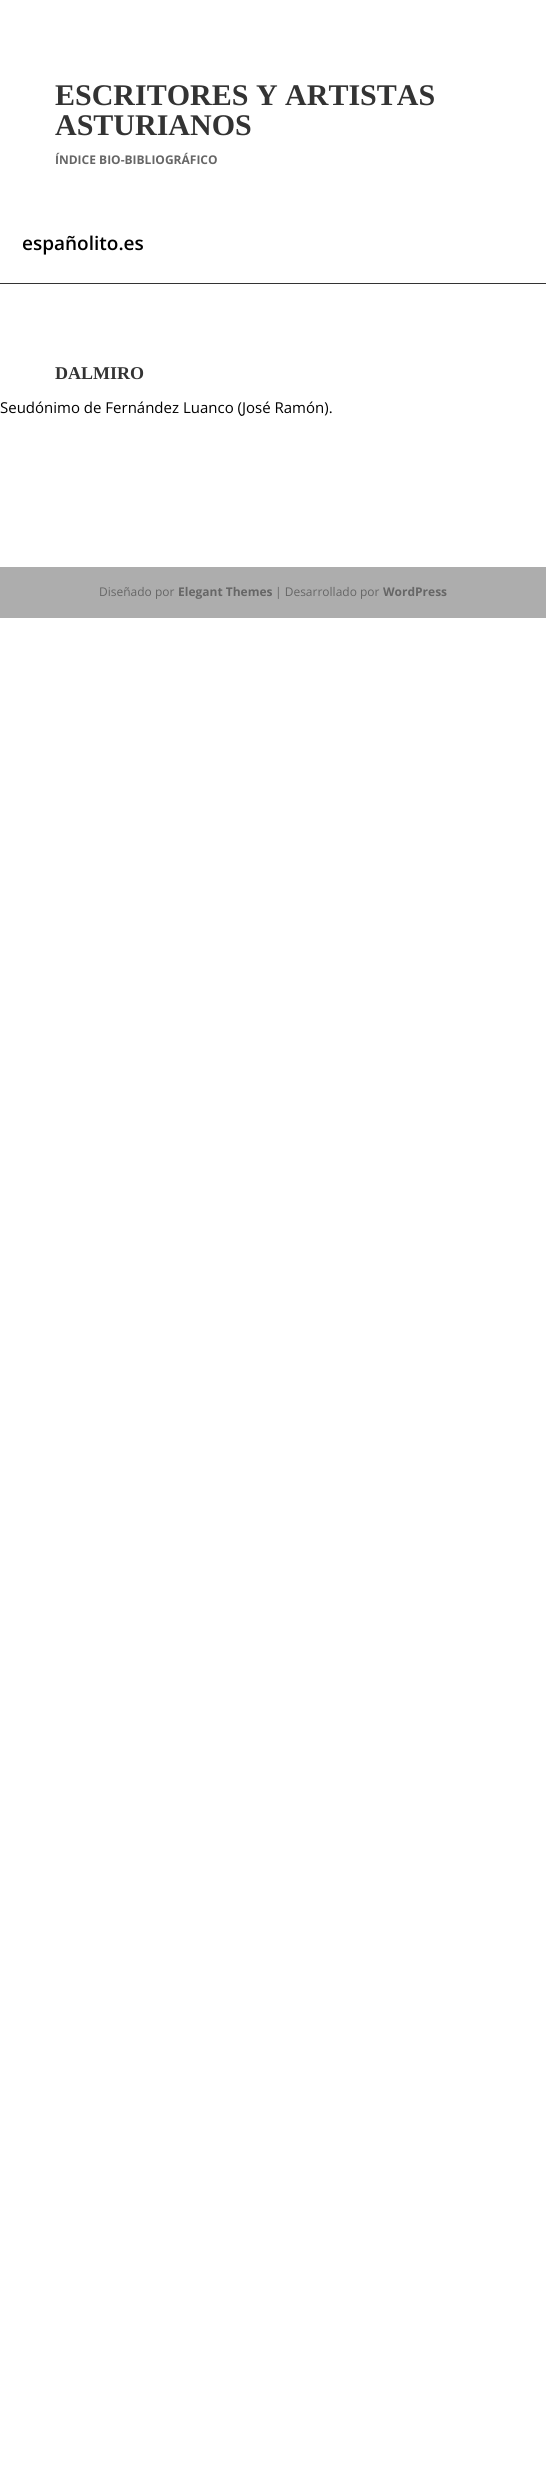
#include <cairo/cairo.h>
#include <math.h>
#include <stddef.h>

static cairo_t *cr;

static void use_color(int r, int g, int b) {
  cairo_set_source_rgb(cr, r / 255.0, g / 255.0, b / 255.0);
}

static void text(double x, double y, const char *s, const char *family, double size, int italic, int bold, int r, int g, int b) {
  cairo_select_font_face(cr, family, italic ? CAIRO_FONT_SLANT_ITALIC : CAIRO_FONT_SLANT_NORMAL,
    bold ? CAIRO_FONT_WEIGHT_BOLD : CAIRO_FONT_WEIGHT_NORMAL);
  cairo_set_font_size(cr, size);
  use_color(r, g, b);
  cairo_move_to(cr, x, y);
  cairo_show_text(cr, s);
}

static void box(double x, double y, double w, double h, int r, int g, int b) {
  use_color(r, g, b);
  cairo_rectangle(cr, x, y, w, h);
  cairo_fill(cr);
}

static void draw(void) {
  use_color(255, 255, 255);
  cairo_paint(cr);
  box(0, 283, 546, 1, 51, 51, 51);
  box(0, 567, 546, 51, 173, 173, 173);
  text(55, 105, "ESCRITORES Y ARTISTAS", "Liberation Serif", 30, 0, 1, 51, 51, 51);
  text(55, 135, "ASTURIANOS", "Liberation Serif", 30, 0, 1, 51, 51, 51);
  text(55, 164, "ÍNDICE BIO-BIBLIOGRÁFICO", "Open Sans", 12, 0, 1, 102, 102, 102);
  text(22, 250, "españolito.es", "Open Sans SemiBold", 19, 0, 0, 0, 0, 0);
  text(55, 379, "DALMIRO", "Liberation Serif", 18, 0, 1, 51, 51, 51);
  text(0, 413, "Seudónimo de Fernández Luanco (José Ramón).", "Open Sans", 15, 0, 0, 0, 0, 0);
  text(99, 596, "Diseñado por", "Open Sans", 12, 0, 0, 102, 102, 102);
  text(178, 596, "Elegant Themes", "Open Sans", 12, 0, 1, 102, 102, 102);
  text(275, 596, "| Desarrollado por", "Open Sans", 12, 0, 0, 102, 102, 102);
  text(383, 596, "WordPress", "Open Sans", 12, 0, 1, 102, 102, 102);
}

int main(void) {
  cairo_surface_t *surface = cairo_image_surface_create(CAIRO_FORMAT_RGB24, 546, 2471);
  cr = cairo_create(surface);
  cairo_font_options_t *options = cairo_font_options_create();
  cairo_font_options_set_hint_metrics(options, CAIRO_HINT_METRICS_OFF);
  cairo_font_options_set_hint_style(options, CAIRO_HINT_STYLE_NONE);
  cairo_set_font_options(cr, options);
  cairo_set_miter_limit(cr, 4);
  draw();
  cairo_surface_write_to_png(surface, "out.png");
  cairo_font_options_destroy(options);
  cairo_destroy(cr);
  cairo_surface_destroy(surface);
  return 0;
}
